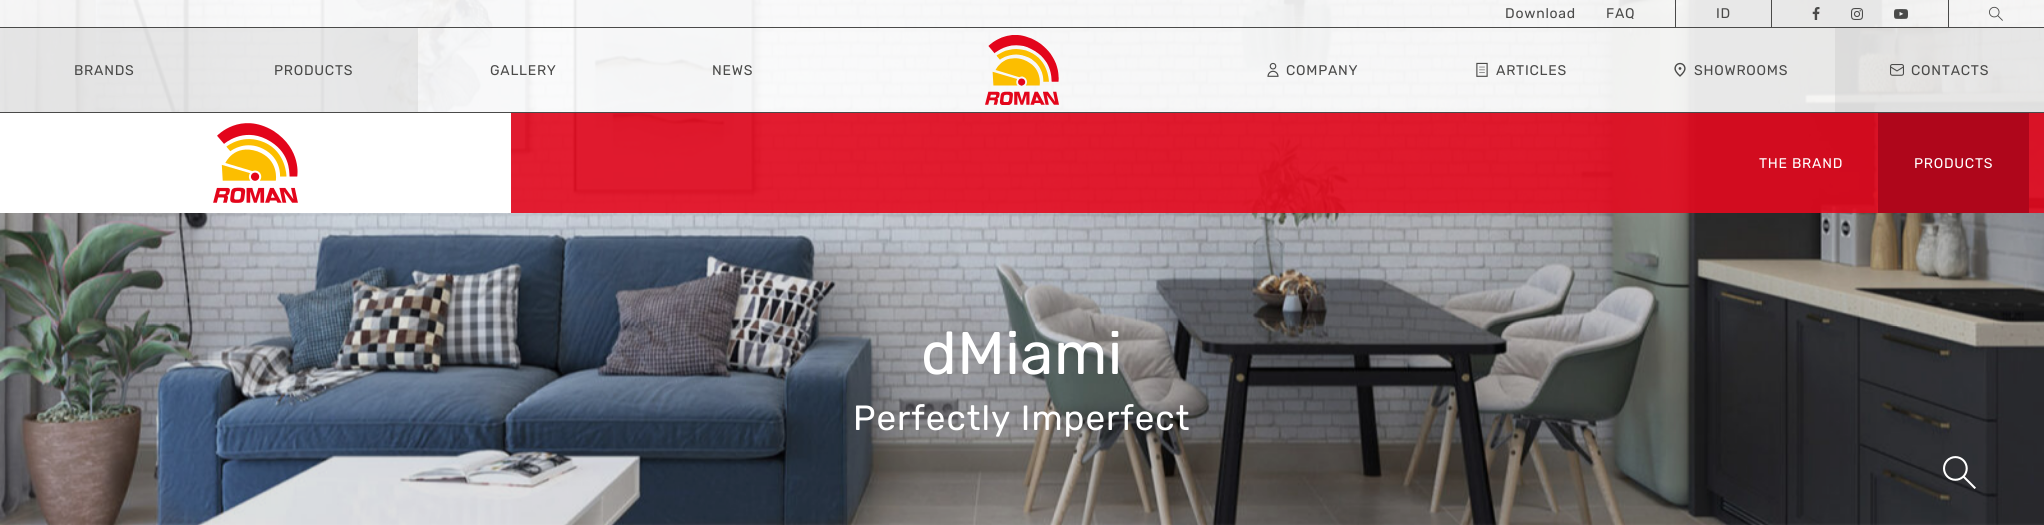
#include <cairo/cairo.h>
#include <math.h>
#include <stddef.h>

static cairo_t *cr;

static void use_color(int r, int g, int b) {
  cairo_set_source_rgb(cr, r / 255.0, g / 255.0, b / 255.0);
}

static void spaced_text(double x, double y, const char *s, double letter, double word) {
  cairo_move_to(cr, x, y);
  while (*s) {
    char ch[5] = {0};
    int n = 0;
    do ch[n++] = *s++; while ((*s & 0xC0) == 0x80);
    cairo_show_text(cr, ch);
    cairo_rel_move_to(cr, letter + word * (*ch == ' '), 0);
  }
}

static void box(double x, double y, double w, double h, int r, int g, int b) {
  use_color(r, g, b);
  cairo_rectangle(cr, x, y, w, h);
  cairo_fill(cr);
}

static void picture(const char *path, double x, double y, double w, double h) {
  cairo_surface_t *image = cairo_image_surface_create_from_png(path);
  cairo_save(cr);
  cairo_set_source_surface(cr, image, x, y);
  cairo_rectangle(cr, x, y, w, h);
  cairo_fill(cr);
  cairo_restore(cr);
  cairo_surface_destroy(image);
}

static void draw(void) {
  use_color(255, 255, 255);
  cairo_paint(cr);
  picture("img_11.png", 0, 0, 2044, 525);
  cairo_set_source_rgba(cr, 1, 1, 1, 0.89);
  cairo_rectangle(cr, 0, 0, 2044, 27);
  cairo_fill(cr);
  box(0, 27, 2044, 1, 74, 74, 73);
  box(1675, 0, 1, 27, 74, 74, 73);
  box(1771, 0, 1, 27, 74, 74, 73);
  box(1948, 0, 1, 27, 74, 74, 73);
  picture("img_01.png", 1812, 7, 8, 13);
  picture("img_02.png", 1851, 8, 12, 12);
  picture("img_03.png", 1894, 9, 14, 10);
  picture("img_04.png", 1989, 6, 14, 15);
  cairo_set_source_rgba(cr, 1, 1, 1, 0.89);
  cairo_rectangle(cr, 0, 28, 2044, 84);
  cairo_fill(cr);
  box(0, 112, 2044, 1, 74, 74, 73);
  cairo_set_source_rgba(cr, 0.749, 0.749, 0.749, 0.3);
  cairo_rectangle(cr, 0, 28, 209, 84);
  cairo_fill(cr);
  cairo_rectangle(cr, 209, 28, 209, 84);
  cairo_fill(cr);
  picture("img_05.png", 985, 35, 74, 70);
  picture("img_06.png", 1267, 62, 12, 15);
  picture("img_07.png", 1476, 62, 12, 15);
  picture("img_08.png", 1674, 62, 12, 15);
  cairo_rectangle(cr, 1835, 28, 209, 84);
  cairo_fill(cr);
  picture("img_09.png", 1890, 64, 14, 12);
  cairo_set_source_rgba(cr, 0.898, 0.035, 0.118, 0.9);
  cairo_rectangle(cr, 511, 113, 1533, 100);
  cairo_fill(cr);
  box(0, 113, 511, 100, 255, 255, 255);
  picture("img_10.png", 213, 123, 85, 80);
  box(1878, 113, 151, 100, 175, 6, 27);
  picture("img_12.png", 1943, 456, 33, 33);
  cairo_select_font_face(cr, "Rubik", CAIRO_FONT_SLANT_NORMAL, CAIRO_FONT_WEIGHT_NORMAL);
  cairo_set_font_size(cr, 14);
  use_color(74, 74, 73);
  spaced_text(1505, 18, "Download", 0.75, 0);
  spaced_text(1606, 18, "FAQ", 0.75, 0);
  spaced_text(1716, 18, "ID", 0.75, 0);
  spaced_text(74, 75, "BRANDS", 0.75, 0);
  spaced_text(274, 75, "PRODUCTS", 0.75, 0);
  spaced_text(490, 75, "GALLERY", 0.75, 0);
  spaced_text(712, 75, "NEWS", 0.75, 0);
  spaced_text(1286, 75, "COMPANY", 0.75, 0);
  spaced_text(1496, 75, "ARTICLES", 0.75, 0);
  spaced_text(1694, 75, "SHOWROOMS", 0.75, 0);
  spaced_text(1911, 75, "CONTACTS", 0.75, 0);
  use_color(255, 255, 255);
  spaced_text(1759, 168, "THE BRAND", 0.75, 0);
  spaced_text(1914, 168, "PRODUCTS", 0.75, 0);
  cairo_set_font_size(cr, 60);
  spaced_text(921, 374, "dMiami", 0.5, 0);
  cairo_set_font_size(cr, 35);
  spaced_text(853, 430, "Perfectly Imperfect", 1, 0);
}

int main(void) {
  cairo_surface_t *surface = cairo_image_surface_create(CAIRO_FORMAT_RGB24, 2044, 525);
  cr = cairo_create(surface);
  cairo_font_options_t *options = cairo_font_options_create();
  cairo_font_options_set_hint_metrics(options, CAIRO_HINT_METRICS_OFF);
  cairo_font_options_set_hint_style(options, CAIRO_HINT_STYLE_NONE);
  cairo_set_font_options(cr, options);
  cairo_set_miter_limit(cr, 4);
  draw();
  cairo_surface_write_to_png(surface, "out.png");
  cairo_font_options_destroy(options);
  cairo_destroy(cr);
  cairo_surface_destroy(surface);
  return 0;
}
